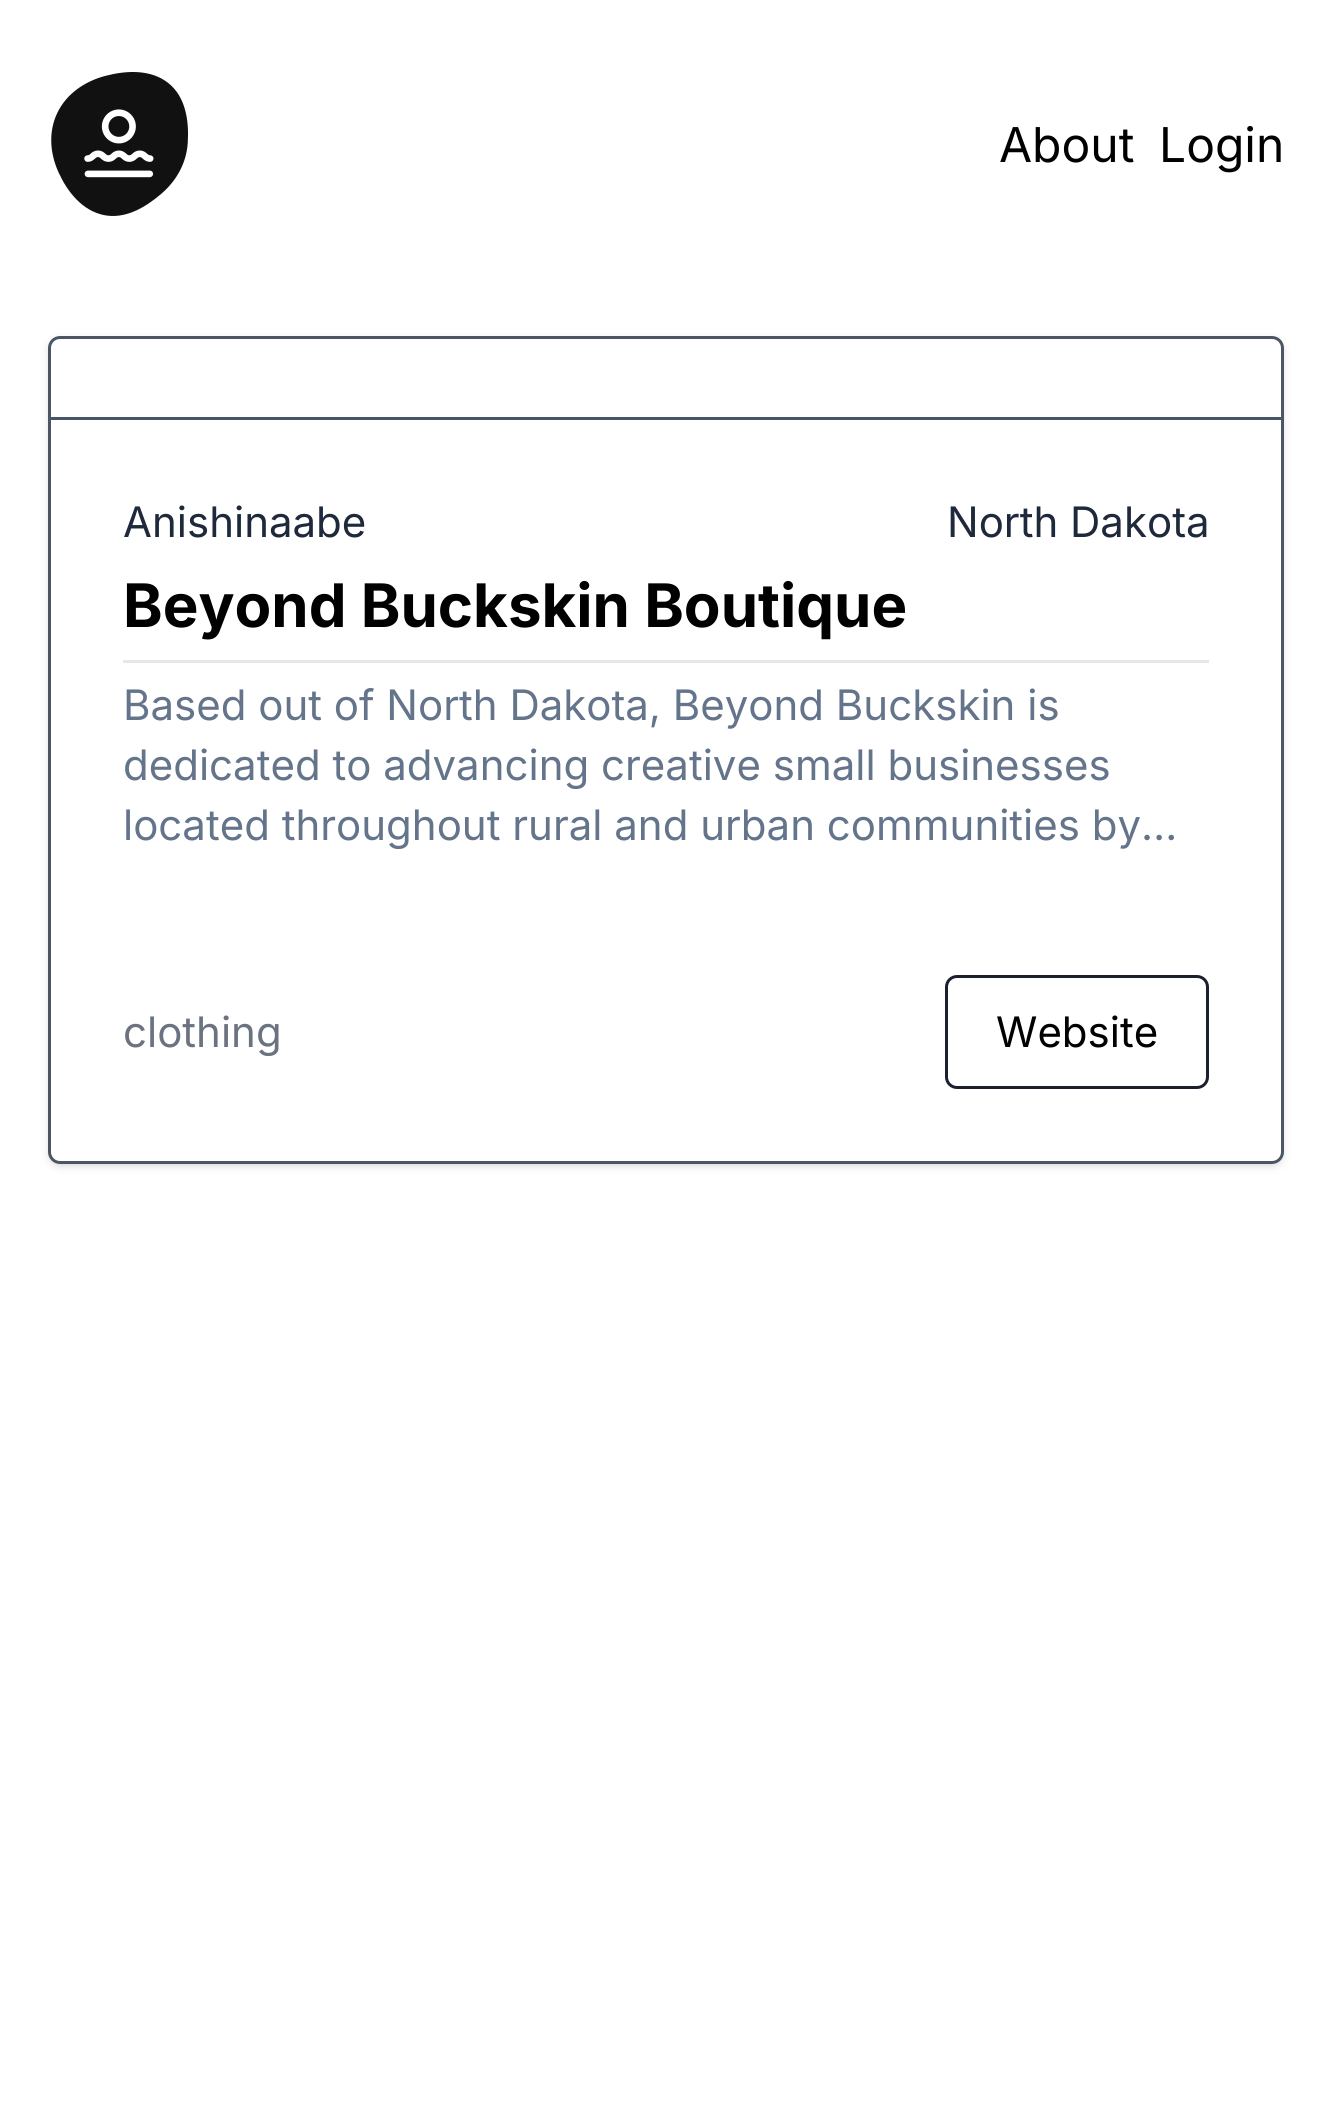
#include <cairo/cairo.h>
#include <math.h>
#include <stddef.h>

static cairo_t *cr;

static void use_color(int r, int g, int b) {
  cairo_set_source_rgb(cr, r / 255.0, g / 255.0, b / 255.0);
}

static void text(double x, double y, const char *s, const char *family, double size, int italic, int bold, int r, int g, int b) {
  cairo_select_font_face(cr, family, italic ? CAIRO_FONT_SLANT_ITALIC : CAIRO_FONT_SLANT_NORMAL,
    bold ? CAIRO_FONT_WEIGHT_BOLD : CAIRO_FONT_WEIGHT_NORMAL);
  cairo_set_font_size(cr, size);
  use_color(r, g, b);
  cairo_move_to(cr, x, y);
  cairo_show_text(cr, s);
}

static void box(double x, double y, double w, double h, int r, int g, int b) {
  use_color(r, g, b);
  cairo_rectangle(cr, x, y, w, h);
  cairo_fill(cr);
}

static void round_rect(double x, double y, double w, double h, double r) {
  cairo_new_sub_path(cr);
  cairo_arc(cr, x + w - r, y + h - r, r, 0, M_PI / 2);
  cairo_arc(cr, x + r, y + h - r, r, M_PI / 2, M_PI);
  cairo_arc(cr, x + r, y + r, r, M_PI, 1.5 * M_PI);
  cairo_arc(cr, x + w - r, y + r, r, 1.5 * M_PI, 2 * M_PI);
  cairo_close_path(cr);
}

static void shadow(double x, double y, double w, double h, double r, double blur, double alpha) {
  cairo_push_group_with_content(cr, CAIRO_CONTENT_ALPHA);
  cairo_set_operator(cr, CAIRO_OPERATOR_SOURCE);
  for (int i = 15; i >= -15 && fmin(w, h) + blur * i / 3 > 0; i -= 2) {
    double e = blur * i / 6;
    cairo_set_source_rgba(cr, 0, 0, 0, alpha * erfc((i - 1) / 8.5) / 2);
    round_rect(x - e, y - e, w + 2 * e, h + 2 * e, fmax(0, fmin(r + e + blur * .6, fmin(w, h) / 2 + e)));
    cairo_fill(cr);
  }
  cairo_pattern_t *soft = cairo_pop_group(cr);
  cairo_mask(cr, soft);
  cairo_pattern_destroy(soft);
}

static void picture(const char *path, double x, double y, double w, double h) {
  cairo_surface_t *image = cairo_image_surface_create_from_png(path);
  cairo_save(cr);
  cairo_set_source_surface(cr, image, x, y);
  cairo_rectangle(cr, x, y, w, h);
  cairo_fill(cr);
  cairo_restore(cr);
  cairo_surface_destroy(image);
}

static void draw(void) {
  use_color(255, 255, 255);
  cairo_paint(cr);
  picture("img_01.png", 51, 72, 138, 144);
  cairo_save(cr);
  cairo_set_fill_rule(cr, CAIRO_FILL_RULE_EVEN_ODD);
  cairo_new_path(cr);
  cairo_move_to(cr, 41, 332);
  cairo_line_to(cr, 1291, 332);
  cairo_line_to(cr, 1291, 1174);
  cairo_line_to(cr, 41, 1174);
  cairo_close_path(cr);
  cairo_move_to(cr, 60, 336);
  cairo_line_to(cr, 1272, 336);
  cairo_curve_to(cr, 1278.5, 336, 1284, 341.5, 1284, 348);
  cairo_line_to(cr, 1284, 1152);
  cairo_curve_to(cr, 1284, 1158.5, 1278.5, 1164, 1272, 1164);
  cairo_line_to(cr, 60, 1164);
  cairo_curve_to(cr, 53.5, 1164, 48, 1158.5, 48, 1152);
  cairo_line_to(cr, 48, 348);
  cairo_curve_to(cr, 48, 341.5, 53.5, 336, 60, 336);
  cairo_close_path(cr);
  cairo_clip(cr);
  use_color(0, 0, 0);
  shadow(51, 342, 1230, 822, 9, 3, 0.1);
  cairo_restore(cr);
  cairo_save(cr);
  cairo_set_fill_rule(cr, CAIRO_FILL_RULE_EVEN_ODD);
  cairo_new_path(cr);
  cairo_move_to(cr, 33, 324);
  cairo_line_to(cr, 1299, 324);
  cairo_line_to(cr, 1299, 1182);
  cairo_line_to(cr, 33, 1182);
  cairo_close_path(cr);
  cairo_move_to(cr, 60, 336);
  cairo_line_to(cr, 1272, 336);
  cairo_curve_to(cr, 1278.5, 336, 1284, 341.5, 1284, 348);
  cairo_line_to(cr, 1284, 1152);
  cairo_curve_to(cr, 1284, 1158.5, 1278.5, 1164, 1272, 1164);
  cairo_line_to(cr, 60, 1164);
  cairo_curve_to(cr, 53.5, 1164, 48, 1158.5, 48, 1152);
  cairo_line_to(cr, 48, 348);
  cairo_curve_to(cr, 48, 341.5, 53.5, 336, 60, 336);
  cairo_close_path(cr);
  cairo_clip(cr);
  use_color(0, 0, 0);
  shadow(48, 339, 1236, 828, 12, 4.5, 0.1);
  cairo_restore(cr);
  round_rect(49.5, 337.5, 1233, 825, 10.5);
  use_color(75, 85, 99);
  cairo_set_line_width(cr, 3);
  cairo_stroke(cr);
  box(51, 417, 1230, 3, 71, 85, 105);
  box(123, 660, 1086, 3, 229, 231, 235);
  round_rect(946.5, 976.5, 261, 111, 10.5);
  use_color(26, 32, 44);
  cairo_stroke(cr);
  text(999, 162, "About", "Inter", 48, 0, 0, 0, 0, 0);
  text(1159, 162, "Login", "Inter", 48, 0, 0, 0, 0, 0);
  text(123, 537, "Anishinaabe", "Inter", 42, 0, 0, 30, 41, 59);
  text(947, 537, "North Dakota", "Inter", 42, 0, 0, 30, 41, 59);
  text(123, 627, "Beyond Buckskin Boutique", "Inter", 60, 0, 1, 0, 0, 0);
  text(123, 720, "Based out of North Dakota, Beyond Buckskin is", "Inter", 42, 0, 0, 100, 116, 139);
  text(123, 780, "dedicated to advancing creative small businesses", "Inter", 42, 0, 0, 100, 116, 139);
  text(123, 840, "located throughout rural and urban communities by…", "Inter", 42, 0, 0, 100, 116, 139);
  text(123, 1047, "clothing", "Inter", 42, 0, 0, 107, 114, 128);
  text(996, 1047, "Website", "Inter", 42, 0, 0, 0, 0, 0);
}

int main(void) {
  cairo_surface_t *surface = cairo_image_surface_create(CAIRO_FORMAT_RGB24, 1332, 2109);
  cr = cairo_create(surface);
  cairo_font_options_t *options = cairo_font_options_create();
  cairo_font_options_set_hint_metrics(options, CAIRO_HINT_METRICS_OFF);
  cairo_font_options_set_hint_style(options, CAIRO_HINT_STYLE_NONE);
  cairo_set_font_options(cr, options);
  cairo_set_miter_limit(cr, 4);
  draw();
  cairo_surface_write_to_png(surface, "out.png");
  cairo_font_options_destroy(options);
  cairo_destroy(cr);
  cairo_surface_destroy(surface);
  return 0;
}
